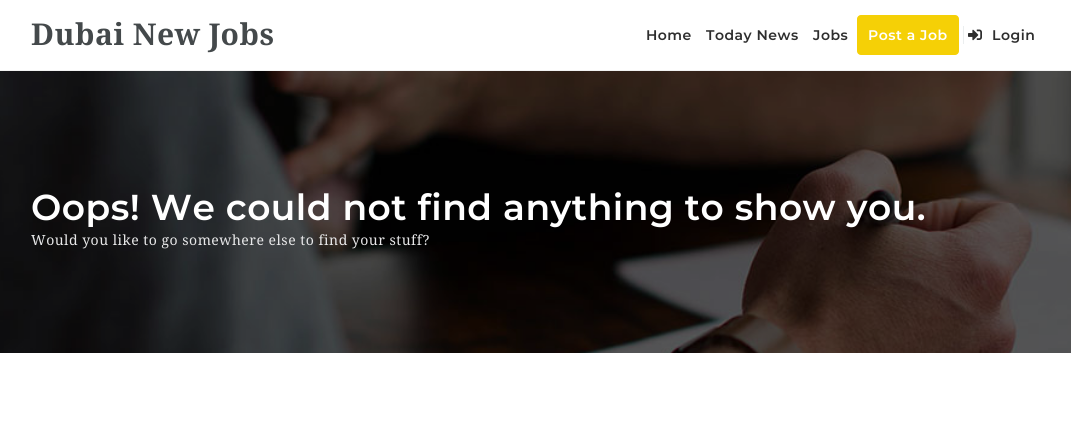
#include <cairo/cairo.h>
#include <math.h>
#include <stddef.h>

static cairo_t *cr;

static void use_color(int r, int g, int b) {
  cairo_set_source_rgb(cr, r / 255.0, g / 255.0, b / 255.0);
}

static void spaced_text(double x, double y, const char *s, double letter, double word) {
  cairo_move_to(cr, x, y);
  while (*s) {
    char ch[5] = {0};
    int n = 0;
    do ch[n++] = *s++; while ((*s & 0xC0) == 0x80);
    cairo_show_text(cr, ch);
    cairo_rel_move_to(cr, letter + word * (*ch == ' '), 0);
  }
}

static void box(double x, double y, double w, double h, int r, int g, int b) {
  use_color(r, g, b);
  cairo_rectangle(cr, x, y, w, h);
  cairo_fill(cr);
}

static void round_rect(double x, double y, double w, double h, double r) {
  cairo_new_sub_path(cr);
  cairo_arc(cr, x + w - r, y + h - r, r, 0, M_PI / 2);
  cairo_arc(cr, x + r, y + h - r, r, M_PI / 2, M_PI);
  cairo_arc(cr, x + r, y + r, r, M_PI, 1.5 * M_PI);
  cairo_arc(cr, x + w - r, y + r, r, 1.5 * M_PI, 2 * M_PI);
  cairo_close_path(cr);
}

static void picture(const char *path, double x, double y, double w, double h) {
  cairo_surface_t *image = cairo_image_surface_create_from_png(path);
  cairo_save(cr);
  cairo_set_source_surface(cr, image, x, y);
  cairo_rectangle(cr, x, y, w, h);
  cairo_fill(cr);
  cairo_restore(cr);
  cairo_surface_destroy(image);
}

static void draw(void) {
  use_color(255, 255, 255);
  cairo_paint(cr);
  box(0, 70, 1071, 1, 242, 242, 242);
  use_color(245, 208, 6);
  round_rect(857, 15, 102, 40, 4);
  cairo_fill(cr);
  box(963, 26, 1, 18, 235, 238, 239);
  picture("img_01.png", 968, 29, 14, 12);
  picture("img_02.png", 0, 71, 1071, 282);
  cairo_select_font_face(cr, "Droid Serif", CAIRO_FONT_SLANT_NORMAL, CAIRO_FONT_WEIGHT_BOLD);
  cairo_set_font_size(cr, 30);
  use_color(68, 73, 75);
  spaced_text(31, 45, "Dubai New Jobs", 0.5, 0);
  cairo_select_font_face(cr, "Montserrat SemiBold", CAIRO_FONT_SLANT_NORMAL, CAIRO_FONT_WEIGHT_NORMAL);
  cairo_set_font_size(cr, 14);
  use_color(46, 46, 46);
  spaced_text(646, 40, "Home", 0.5, 0);
  spaced_text(706, 40, "Today News", 0.5, 0);
  spaced_text(813, 40, "Jobs", 0.5, 0);
  use_color(255, 255, 255);
  spaced_text(868, 40, "Post a Job", 0.5, 0);
  use_color(46, 46, 46);
  spaced_text(992, 40, "Login", 0.5, 0);
  cairo_set_font_size(cr, 36);
  use_color(255, 255, 255);
  spaced_text(31, 220, "Oops! We could not find anything to show you.", 0.5, 0);
  cairo_select_font_face(cr, "Droid Serif", CAIRO_FONT_SLANT_NORMAL, CAIRO_FONT_WEIGHT_NORMAL);
  cairo_set_font_size(cr, 14);
  use_color(232, 232, 233);
  spaced_text(31, 245, "Would you like to go somewhere else to find your stuff?", 0.5, 0);
}

int main(void) {
  cairo_surface_t *surface = cairo_image_surface_create(CAIRO_FORMAT_RGB24, 1071, 423);
  cr = cairo_create(surface);
  cairo_font_options_t *options = cairo_font_options_create();
  cairo_font_options_set_hint_metrics(options, CAIRO_HINT_METRICS_OFF);
  cairo_font_options_set_hint_style(options, CAIRO_HINT_STYLE_NONE);
  cairo_set_font_options(cr, options);
  cairo_set_miter_limit(cr, 4);
  draw();
  cairo_surface_write_to_png(surface, "out.png");
  cairo_font_options_destroy(options);
  cairo_destroy(cr);
  cairo_surface_destroy(surface);
  return 0;
}
